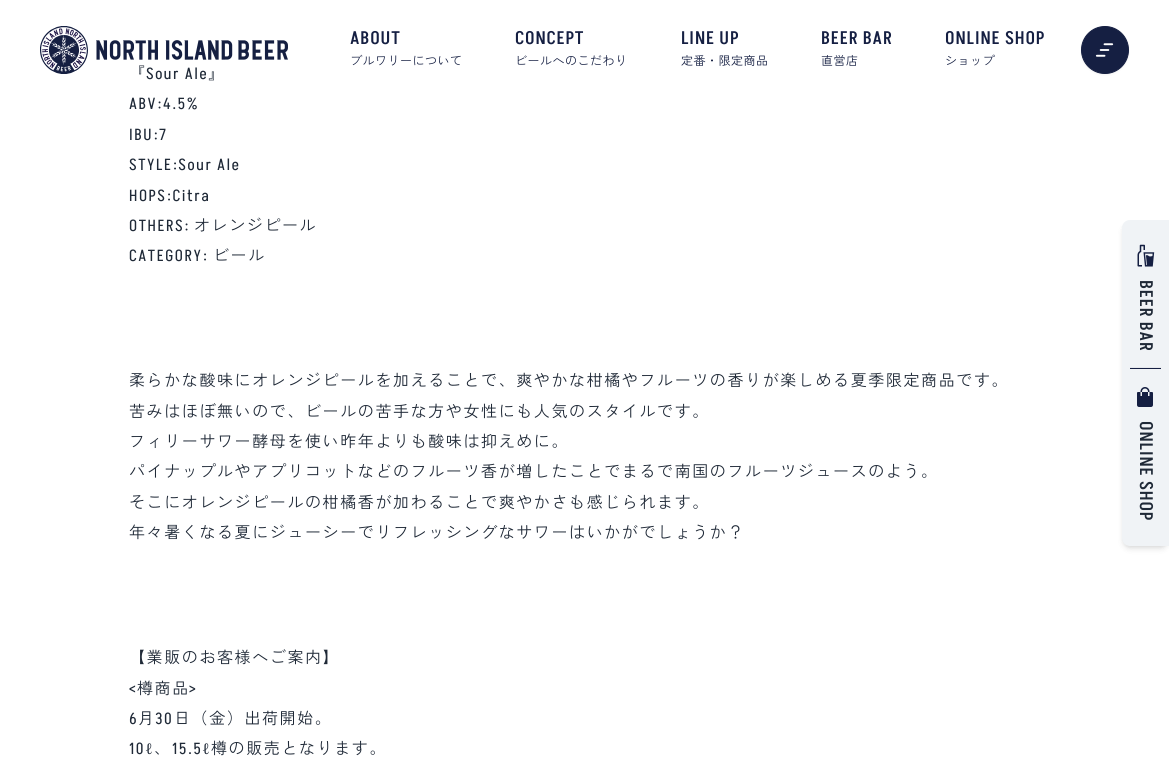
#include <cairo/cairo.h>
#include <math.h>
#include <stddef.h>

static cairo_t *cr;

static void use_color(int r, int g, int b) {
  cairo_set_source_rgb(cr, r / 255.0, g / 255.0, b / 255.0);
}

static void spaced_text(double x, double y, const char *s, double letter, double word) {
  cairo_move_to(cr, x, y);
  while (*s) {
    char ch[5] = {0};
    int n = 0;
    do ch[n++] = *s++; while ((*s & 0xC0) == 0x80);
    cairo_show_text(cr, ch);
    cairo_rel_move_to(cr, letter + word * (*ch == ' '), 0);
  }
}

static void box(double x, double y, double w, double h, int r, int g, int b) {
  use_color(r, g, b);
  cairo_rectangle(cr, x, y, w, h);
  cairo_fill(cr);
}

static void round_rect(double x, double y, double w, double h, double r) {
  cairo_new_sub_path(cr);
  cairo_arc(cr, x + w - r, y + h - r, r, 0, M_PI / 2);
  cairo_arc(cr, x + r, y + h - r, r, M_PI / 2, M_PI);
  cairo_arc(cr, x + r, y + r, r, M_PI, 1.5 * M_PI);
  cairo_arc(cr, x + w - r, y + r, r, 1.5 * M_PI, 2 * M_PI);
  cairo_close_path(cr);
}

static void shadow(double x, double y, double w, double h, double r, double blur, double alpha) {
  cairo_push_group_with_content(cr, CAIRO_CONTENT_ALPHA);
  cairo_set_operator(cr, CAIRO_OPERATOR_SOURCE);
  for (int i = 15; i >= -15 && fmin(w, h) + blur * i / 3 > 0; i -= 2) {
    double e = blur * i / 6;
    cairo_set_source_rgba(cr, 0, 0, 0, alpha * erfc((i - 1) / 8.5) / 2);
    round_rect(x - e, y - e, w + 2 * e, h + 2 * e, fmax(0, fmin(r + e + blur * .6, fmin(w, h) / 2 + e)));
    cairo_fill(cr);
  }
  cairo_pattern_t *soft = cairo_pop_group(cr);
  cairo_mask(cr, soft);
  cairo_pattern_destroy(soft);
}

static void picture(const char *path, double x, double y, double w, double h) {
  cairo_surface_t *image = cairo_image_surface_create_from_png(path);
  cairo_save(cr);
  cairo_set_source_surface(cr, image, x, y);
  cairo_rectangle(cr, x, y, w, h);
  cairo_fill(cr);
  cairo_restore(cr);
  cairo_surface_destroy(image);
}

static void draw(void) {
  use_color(255, 255, 255);
  cairo_paint(cr);
  picture("img_01.png", 40, 26, 48, 48);
  picture("img_02.png", 96, 40, 192, 20);
  use_color(0, 0, 0);
  shadow(1081, 27, 48, 48, 24, 1, 0.05);
  use_color(21, 31, 66);
  cairo_arc(cr, 1105, 50, 23.5, 0, 2 * M_PI);
  cairo_fill_preserve(cr);
  cairo_set_line_width(cr, 1);
  cairo_stroke(cr);
  picture("img_03.png", 1095, 43, 19, 14);
  use_color(0, 0, 0);
  shadow(1124, 224, 43, 322, 6, 2, 0.1);
  shadow(1123, 225, 45, 324, 7, 3, 0.1);
  use_color(240, 243, 246);
  cairo_new_path(cr);
  cairo_move_to(cr, 1130, 220);
  cairo_line_to(cr, 1169, 220);
  cairo_line_to(cr, 1169, 546);
  cairo_line_to(cr, 1130, 546);
  cairo_curve_to(cr, 1125.5, 546, 1122, 542.5, 1122, 538);
  cairo_line_to(cr, 1122, 228);
  cairo_curve_to(cr, 1122, 223.5, 1125.5, 220, 1130, 220);
  cairo_close_path(cr);
  cairo_fill(cr);
  picture("img_04.png", 1137, 244, 18, 23);
  box(1130, 368, 31, 1, 21, 31, 66);
  box(1130, 367, 31, 1, 229, 231, 235);
  picture("img_05.png", 1137, 387, 16, 20);
  cairo_select_font_face(cr, "Akshar Medium", CAIRO_FONT_SLANT_NORMAL, CAIRO_FONT_WEIGHT_NORMAL);
  cairo_set_font_size(cr, 18);
  use_color(21, 31, 66);
  spaced_text(350, 44, "ABOUT", 0.9, 0);
  cairo_select_font_face(cr, "Zen Kaku Gothic Antique", CAIRO_FONT_SLANT_NORMAL, CAIRO_FONT_WEIGHT_NORMAL);
  cairo_set_font_size(cr, 12);
  spaced_text(350, 65, "ブルワリーについて", 0.5, 0);
  cairo_select_font_face(cr, "Akshar Medium", CAIRO_FONT_SLANT_NORMAL, CAIRO_FONT_WEIGHT_NORMAL);
  cairo_set_font_size(cr, 18);
  spaced_text(515, 44, "CONCEPT", 0.9, 0);
  cairo_select_font_face(cr, "Zen Kaku Gothic Antique", CAIRO_FONT_SLANT_NORMAL, CAIRO_FONT_WEIGHT_NORMAL);
  cairo_set_font_size(cr, 12);
  spaced_text(515, 65, "ビールへのこだわり", 0.5, 0);
  cairo_select_font_face(cr, "Akshar Medium", CAIRO_FONT_SLANT_NORMAL, CAIRO_FONT_WEIGHT_NORMAL);
  cairo_set_font_size(cr, 18);
  spaced_text(681, 44, "LINE UP", 0.9, 0);
  cairo_select_font_face(cr, "Zen Kaku Gothic Antique", CAIRO_FONT_SLANT_NORMAL, CAIRO_FONT_WEIGHT_NORMAL);
  cairo_set_font_size(cr, 12);
  spaced_text(681, 65, "定番・限定商品", 0.5, 0);
  cairo_select_font_face(cr, "Akshar Medium", CAIRO_FONT_SLANT_NORMAL, CAIRO_FONT_WEIGHT_NORMAL);
  cairo_set_font_size(cr, 18);
  spaced_text(821, 44, "BEER BAR", 0.9, 0);
  cairo_select_font_face(cr, "Zen Kaku Gothic Antique", CAIRO_FONT_SLANT_NORMAL, CAIRO_FONT_WEIGHT_NORMAL);
  cairo_set_font_size(cr, 12);
  spaced_text(821, 65, "直営店", 0.5, 0);
  cairo_select_font_face(cr, "Akshar Medium", CAIRO_FONT_SLANT_NORMAL, CAIRO_FONT_WEIGHT_NORMAL);
  cairo_set_font_size(cr, 18);
  spaced_text(945, 44, "ONLINE SHOP", 0.9, 0);
  cairo_select_font_face(cr, "Zen Kaku Gothic Antique", CAIRO_FONT_SLANT_NORMAL, CAIRO_FONT_WEIGHT_NORMAL);
  cairo_set_font_size(cr, 12);
  spaced_text(945, 65, "ショップ", 0.5, 0);
  cairo_set_font_size(cr, 16);
  use_color(31, 41, 55);
  spaced_text(129, 79, "『", 1.6, 0);
  cairo_select_font_face(cr, "Akshar", CAIRO_FONT_SLANT_NORMAL, CAIRO_FONT_WEIGHT_NORMAL);
  spaced_text(146, 79, "Sour Ale", 1.6, 0);
  cairo_select_font_face(cr, "Zen Kaku Gothic Antique", CAIRO_FONT_SLANT_NORMAL, CAIRO_FONT_WEIGHT_NORMAL);
  spaced_text(208, 79, "』", 1.6, 0);
  cairo_select_font_face(cr, "Akshar", CAIRO_FONT_SLANT_NORMAL, CAIRO_FONT_WEIGHT_NORMAL);
  spaced_text(129, 109, "ABV:4.5%", 1.6, 0);
  spaced_text(129, 140, "IBU:7", 1.6, 0);
  spaced_text(129, 170, "STYLE:Sour Ale", 1.6, 0);
  spaced_text(129, 201, "HOPS:Citra", 1.6, 0);
  spaced_text(129, 231, "OTHERS:", 1.6, 0);
  cairo_select_font_face(cr, "Zen Kaku Gothic Antique", CAIRO_FONT_SLANT_NORMAL, CAIRO_FONT_WEIGHT_NORMAL);
  spaced_text(194, 231, "オレンジピール", 1.6, 0);
  cairo_select_font_face(cr, "Akshar", CAIRO_FONT_SLANT_NORMAL, CAIRO_FONT_WEIGHT_NORMAL);
  spaced_text(129, 261, "CATEGORY:", 1.6, 0);
  cairo_select_font_face(cr, "Zen Kaku Gothic Antique", CAIRO_FONT_SLANT_NORMAL, CAIRO_FONT_WEIGHT_NORMAL);
  spaced_text(213, 261, "ビール", 1.6, 0);
  spaced_text(129, 386, "柔らかな酸味にオレンジピールを加えることで、爽やかな柑橘やフルーツの香りが楽しめる夏季限定商品です。", 1.6, 0);
  spaced_text(129, 417, "苦みはほぼ無いので、ビールの苦手な方や女性にも人気のスタイルです。", 1.6, 0);
  spaced_text(129, 447, "フィリーサワー酵母を使い昨年よりも酸味は抑えめに。", 1.6, 0);
  spaced_text(129, 477, "パイナップルやアプリコットなどのフルーツ香が増したことでまるで南国のフルーツジュースのよう。", 1.6, 0);
  spaced_text(129, 508, "そこにオレンジピールの柑橘香が加わることで爽やかさも感じられます。", 1.6, 0);
  spaced_text(129, 538, "年々暑くなる夏にジューシーでリフレッシングなサワーはいかがでしょうか？", 1.6, 0);
  spaced_text(129, 663, "【業販のお客様へご案内】", 1.6, 0);
  cairo_select_font_face(cr, "Akshar", CAIRO_FONT_SLANT_NORMAL, CAIRO_FONT_WEIGHT_NORMAL);
  spaced_text(129, 694, "<", 1.6, 0);
  cairo_select_font_face(cr, "Zen Kaku Gothic Antique", CAIRO_FONT_SLANT_NORMAL, CAIRO_FONT_WEIGHT_NORMAL);
  spaced_text(137, 694, "樽商品", 1.6, 0);
  cairo_select_font_face(cr, "Akshar", CAIRO_FONT_SLANT_NORMAL, CAIRO_FONT_WEIGHT_NORMAL);
  spaced_text(189, 694, ">", 1.6, 0);
  spaced_text(129, 724, "6", 1.6, 0);
  cairo_select_font_face(cr, "Zen Kaku Gothic Antique", CAIRO_FONT_SLANT_NORMAL, CAIRO_FONT_WEIGHT_NORMAL);
  spaced_text(138, 724, "月", 1.6, 0);
  cairo_select_font_face(cr, "Akshar", CAIRO_FONT_SLANT_NORMAL, CAIRO_FONT_WEIGHT_NORMAL);
  spaced_text(155, 724, "30", 1.6, 0);
  cairo_select_font_face(cr, "Zen Kaku Gothic Antique", CAIRO_FONT_SLANT_NORMAL, CAIRO_FONT_WEIGHT_NORMAL);
  spaced_text(174, 724, "日（金）出荷開始。", 1.6, 0);
  cairo_select_font_face(cr, "Akshar", CAIRO_FONT_SLANT_NORMAL, CAIRO_FONT_WEIGHT_NORMAL);
  spaced_text(129, 754, "10", 1.6, 0);
  cairo_select_font_face(cr, "Liberation Serif", CAIRO_FONT_SLANT_NORMAL, CAIRO_FONT_WEIGHT_NORMAL);
  spaced_text(145, 754, "ℓ", 1.6, 0);
  cairo_select_font_face(cr, "Zen Kaku Gothic Antique", CAIRO_FONT_SLANT_NORMAL, CAIRO_FONT_WEIGHT_NORMAL);
  spaced_text(154, 754, "、", 1.6, 0);
  cairo_select_font_face(cr, "Akshar", CAIRO_FONT_SLANT_NORMAL, CAIRO_FONT_WEIGHT_NORMAL);
  spaced_text(172, 754, "15.5", 1.6, 0);
  cairo_select_font_face(cr, "Liberation Serif", CAIRO_FONT_SLANT_NORMAL, CAIRO_FONT_WEIGHT_NORMAL);
  spaced_text(202, 754, "ℓ", 1.6, 0);
  cairo_select_font_face(cr, "Zen Kaku Gothic Antique", CAIRO_FONT_SLANT_NORMAL, CAIRO_FONT_WEIGHT_NORMAL);
  spaced_text(211, 754, "樽の販売となります。", 1.6, 0);
  cairo_select_font_face(cr, "Akshar Medium", CAIRO_FONT_SLANT_NORMAL, CAIRO_FONT_WEIGHT_NORMAL);
  cairo_set_font_size(cr, 18);
  cairo_save(cr);
  cairo_translate(cr, 1140, 280);
  cairo_rotate(cr, 90 * M_PI / 180);
  spaced_text(0, 0, "BEER BAR", 0.9, 0);
  cairo_restore(cr);
  cairo_save(cr);
  cairo_translate(cr, 1140, 421);
  cairo_rotate(cr, 90 * M_PI / 180);
  spaced_text(0, 0, "ONLINE SHOP", 0.9, 0);
  cairo_restore(cr);
}

int main(void) {
  cairo_surface_t *surface = cairo_image_surface_create(CAIRO_FORMAT_RGB24, 1169, 765);
  cr = cairo_create(surface);
  cairo_font_options_t *options = cairo_font_options_create();
  cairo_font_options_set_hint_metrics(options, CAIRO_HINT_METRICS_OFF);
  cairo_font_options_set_hint_style(options, CAIRO_HINT_STYLE_NONE);
  cairo_set_font_options(cr, options);
  cairo_set_miter_limit(cr, 4);
  draw();
  cairo_surface_write_to_png(surface, "out.png");
  cairo_font_options_destroy(options);
  cairo_destroy(cr);
  cairo_surface_destroy(surface);
  return 0;
}
